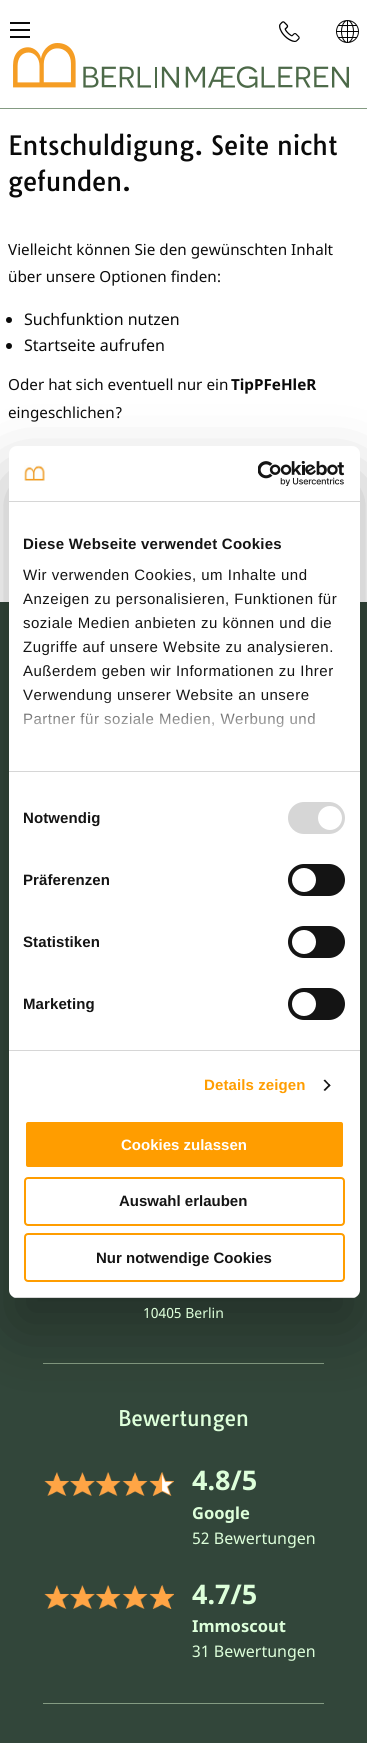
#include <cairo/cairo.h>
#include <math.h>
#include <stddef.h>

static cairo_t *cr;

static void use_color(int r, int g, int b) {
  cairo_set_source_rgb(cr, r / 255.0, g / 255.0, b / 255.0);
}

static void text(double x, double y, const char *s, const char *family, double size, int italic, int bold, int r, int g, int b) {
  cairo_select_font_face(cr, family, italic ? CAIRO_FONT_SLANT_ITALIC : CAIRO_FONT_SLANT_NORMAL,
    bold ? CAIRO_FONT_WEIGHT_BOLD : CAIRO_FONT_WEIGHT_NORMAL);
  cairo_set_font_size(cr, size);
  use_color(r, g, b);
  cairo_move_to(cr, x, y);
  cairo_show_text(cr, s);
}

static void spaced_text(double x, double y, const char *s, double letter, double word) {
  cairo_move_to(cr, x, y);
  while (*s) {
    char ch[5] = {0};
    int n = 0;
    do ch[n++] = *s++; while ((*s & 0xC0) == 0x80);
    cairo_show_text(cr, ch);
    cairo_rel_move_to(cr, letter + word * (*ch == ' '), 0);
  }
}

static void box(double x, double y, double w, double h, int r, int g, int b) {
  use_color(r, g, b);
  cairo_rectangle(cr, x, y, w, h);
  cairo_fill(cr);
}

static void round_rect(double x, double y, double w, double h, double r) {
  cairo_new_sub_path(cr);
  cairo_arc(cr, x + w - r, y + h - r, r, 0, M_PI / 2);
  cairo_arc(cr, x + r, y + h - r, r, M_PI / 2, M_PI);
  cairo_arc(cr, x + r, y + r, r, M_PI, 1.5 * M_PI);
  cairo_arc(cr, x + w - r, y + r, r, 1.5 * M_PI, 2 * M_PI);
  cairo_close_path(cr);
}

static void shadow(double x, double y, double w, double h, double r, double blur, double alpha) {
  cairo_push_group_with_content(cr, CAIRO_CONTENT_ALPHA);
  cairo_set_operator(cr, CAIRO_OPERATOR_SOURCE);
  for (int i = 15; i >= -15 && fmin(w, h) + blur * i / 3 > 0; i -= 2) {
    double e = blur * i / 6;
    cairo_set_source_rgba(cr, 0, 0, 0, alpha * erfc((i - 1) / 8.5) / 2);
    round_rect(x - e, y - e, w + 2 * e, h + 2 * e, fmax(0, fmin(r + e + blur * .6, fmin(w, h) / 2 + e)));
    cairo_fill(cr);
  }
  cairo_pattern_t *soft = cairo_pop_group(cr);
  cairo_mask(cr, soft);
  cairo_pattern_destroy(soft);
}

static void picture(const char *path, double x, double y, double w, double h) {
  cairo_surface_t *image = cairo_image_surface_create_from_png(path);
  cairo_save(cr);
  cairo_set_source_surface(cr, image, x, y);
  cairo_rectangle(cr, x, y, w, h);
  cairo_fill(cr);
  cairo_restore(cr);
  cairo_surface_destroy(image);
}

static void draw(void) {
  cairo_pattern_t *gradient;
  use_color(255, 255, 255);
  cairo_paint(cr);
  box(0, 108, 367, 1, 132, 155, 130);
  picture("img_01.png", 279, 21, 21, 21);
  picture("img_02.png", 336, 20, 23, 23);
  picture("img_03.png", 13, 43, 336, 45);
  box(10, 36, 20, 2, 10, 10, 10);
  box(10, 29, 20, 2, 10, 10, 10);
  box(10, 22, 20, 2, 10, 10, 10);
  cairo_arc(cr, 9, 320, 3, 0, 2 * M_PI);
  cairo_fill(cr);
  cairo_arc(cr, 9, 346, 3, 0, 2 * M_PI);
  cairo_fill(cr);
  box(0, 602, 367, 1141, 50, 70, 58);
  box(43, 1363, 281, 1, 132, 155, 130);
  use_color(0, 0, 0);
  shadow(9, 478, 351, 852, 8, 34, 0.3);
  use_color(255, 255, 255);
  round_rect(9, 446, 351, 852, 8);
  cairo_fill(cr);
  box(9, 501, 351, 1, 214, 214, 214);
  picture("img_04.png", 24, 465, 21, 16);
  picture("img_05.png", 258, 461, 87, 25);
  box(9, 771, 351, 1, 214, 214, 214);
  box(9, 1050, 351, 1, 214, 214, 214);
  round_rect(288, 802, 57, 32, 16);
  cairo_fill(cr);
  use_color(255, 255, 255);
  cairo_arc(cr, 330, 818, 12, 0, 2 * M_PI);
  cairo_fill(cr);
  use_color(20, 20, 20);
  round_rect(288, 864, 57, 32, 16);
  cairo_fill(cr);
  use_color(255, 255, 255);
  cairo_arc(cr, 304, 880, 12, 0, 2 * M_PI);
  cairo_fill(cr);
  use_color(20, 20, 20);
  round_rect(288, 926, 57, 32, 16);
  cairo_fill(cr);
  use_color(255, 255, 255);
  cairo_arc(cr, 304, 942, 12, 0, 2 * M_PI);
  cairo_fill(cr);
  use_color(20, 20, 20);
  round_rect(288, 988, 57, 32, 16);
  cairo_fill(cr);
  use_color(255, 255, 255);
  cairo_arc(cr, 304, 1004, 12, 0, 2 * M_PI);
  cairo_fill(cr);
  use_color(20, 20, 20);
  cairo_new_path(cr);
  cairo_move_to(cr, 325, 1079.5);
  cairo_line_to(cr, 330.5, 1085.5);
  cairo_line_to(cr, 329.5, 1086.5);
  cairo_line_to(cr, 323.5, 1080.5);
  cairo_close_path(cr);
  cairo_fill(cr);
  cairo_new_path(cr);
  cairo_move_to(cr, 329.5, 1084);
  cairo_line_to(cr, 330.5, 1085.5);
  cairo_line_to(cr, 325, 1091);
  cairo_line_to(cr, 323.5, 1090);
  cairo_close_path(cr);
  cairo_fill(cr);
  cairo_save(cr);
  round_rect(9, 446, 351, 852, 8);
  cairo_clip(cr);
  box(9, 1297, 351, 1, 214, 214, 214);
  cairo_restore(cr);
  use_color(255, 157, 0);
  round_rect(25, 1121, 319, 47, 3);
  cairo_fill_preserve(cr);
  use_color(255, 255, 255);
  cairo_stroke(cr);
  round_rect(25, 1178, 319, 47, 3);
  use_color(255, 157, 0);
  cairo_stroke(cr);
  round_rect(25, 1234, 319, 47, 3);
  cairo_stroke(cr);
  box(43, 1703, 281, 1, 132, 155, 130);
  picture("img_06.png", 44, 1472, 130, 24);
  picture("img_07.png", 44, 1585, 130, 24);
  text(8, 155, "Entschuldigung. Seite nicht", "Tauri", 25.6, 0, 0, 10, 10, 10);
  text(8, 191, "gefunden.", "Tauri", 25.6, 0, 0, 10, 10, 10);
  text(8, 255, "Vielleicht können Sie den gewünschten Inhalt", "Noto Sans", 15.25, 0, 0, 10, 10, 10);
  text(8, 282, "über unsere Optionen finden:", "Noto Sans", 15.25, 0, 0, 10, 10, 10);
  text(24, 325, "Suchfunktion nutzen", "Noto Sans", 16, 0, 0, 10, 10, 10);
  text(24, 351, "Startseite aufrufen", "Noto Sans", 16, 0, 0, 10, 10, 10);
  text(8, 390, "Oder hat sich eventuell nur ein", "Noto Sans", 15.25, 0, 0, 10, 10, 10);
  text(231, 390, "TipPFeHleR", "Noto Sans", 15.25, 0, 1, 10, 10, 10);
  text(8, 418, "eingeschlichen?", "Noto Sans", 15.25, 0, 0, 10, 10, 10);
  cairo_select_font_face(cr, "Liberation Sans", CAIRO_FONT_SLANT_NORMAL, CAIRO_FONT_WEIGHT_BOLD);
  cairo_set_font_size(cr, 15);
  use_color(20, 20, 20);
  spaced_text(23, 549, "Diese Webseite verwendet Cookies", 0.25, 0);
  cairo_select_font_face(cr, "Liberation Sans", CAIRO_FONT_SLANT_NORMAL, CAIRO_FONT_WEIGHT_NORMAL);
  spaced_text(23, 580, "Wir verwenden Cookies, um Inhalte und", 0.5, 0);
  spaced_text(23, 604, "Anzeigen zu personalisieren, Funktionen für", 0.5, 0);
  spaced_text(23, 628, "soziale Medien anbieten zu können und die", 0.5, 0);
  spaced_text(23, 652, "Zugriffe auf unsere Website zu analysieren.", 0.5, 0);
  spaced_text(23, 676, "Außerdem geben wir Informationen zu Ihrer", 0.5, 0);
  spaced_text(23, 700, "Verwendung unserer Website an unsere", 0.5, 0);
  spaced_text(23, 724, "Partner für soziale Medien, Werbung und", 0.5, 0);
  gradient = cairo_pattern_create_linear(178, 771, 178, 696);
  cairo_pattern_add_color_stop_rgba(gradient, 0, 1, 1, 1, 1);
  cairo_pattern_add_color_stop_rgba(gradient, 0.5, 1, 1, 1, 0.8);
  cairo_pattern_add_color_stop_rgba(gradient, 1, 1, 1, 1, 0);
  cairo_set_source(cr, gradient);
  cairo_pattern_destroy(gradient);
  cairo_rectangle(cr, 24, 697, 291, 31);
  cairo_fill(cr);
  cairo_select_font_face(cr, "Liberation Sans", CAIRO_FONT_SLANT_NORMAL, CAIRO_FONT_WEIGHT_BOLD);
  use_color(20, 20, 20);
  spaced_text(23, 823, "Notwendig", 0.1, 0);
  spaced_text(23, 885, "Präferenzen", 0.1, 0);
  spaced_text(23, 947, "Statistiken", 0.1, 0);
  spaced_text(23, 1009, "Marketing", 0.1, 0);
  use_color(255, 157, 0);
  spaced_text(204, 1090, "Details zeigen", 0.1, 0);
  text(121, 1150, "Cookies zulassen", "Liberation Sans", 15, 0, 1, 255, 255, 255);
  text(119, 1206, "Auswahl erlauben", "Liberation Sans", 15, 0, 1, 20, 20, 20);
  text(96, 1263, "Nur notwendige Cookies", "Liberation Sans", 15, 0, 1, 20, 20, 20);
  text(143, 1318, "10405 Berlin", "Noto Sans", 14, 0, 0, 221, 255, 218);
  text(118, 1426, "Bewertungen", "Tauri", 20.75, 0, 0, 221, 255, 218);
  text(192, 1490, "4.8/5", "Noto Sans", 27, 0, 1, 221, 255, 218);
  text(192, 1519, "Google", "Noto Sans", 16.5, 0, 1, 221, 255, 218);
  text(192, 1544, "52 Bewertungen", "Noto Sans", 16, 0, 0, 221, 255, 218);
  text(192, 1604, "4.7/5", "Noto Sans", 27, 0, 1, 221, 255, 218);
  text(192, 1632, "Immoscout", "Noto Sans", 16.5, 0, 1, 221, 255, 218);
  text(192, 1657, "31 Bewertungen", "Noto Sans", 16, 0, 0, 221, 255, 218);
}

int main(void) {
  cairo_surface_t *surface = cairo_image_surface_create(CAIRO_FORMAT_RGB24, 367, 1743);
  cr = cairo_create(surface);
  cairo_font_options_t *options = cairo_font_options_create();
  cairo_font_options_set_hint_metrics(options, CAIRO_HINT_METRICS_OFF);
  cairo_font_options_set_hint_style(options, CAIRO_HINT_STYLE_NONE);
  cairo_set_font_options(cr, options);
  cairo_set_miter_limit(cr, 4);
  draw();
  cairo_surface_write_to_png(surface, "out.png");
  cairo_font_options_destroy(options);
  cairo_destroy(cr);
  cairo_surface_destroy(surface);
  return 0;
}
